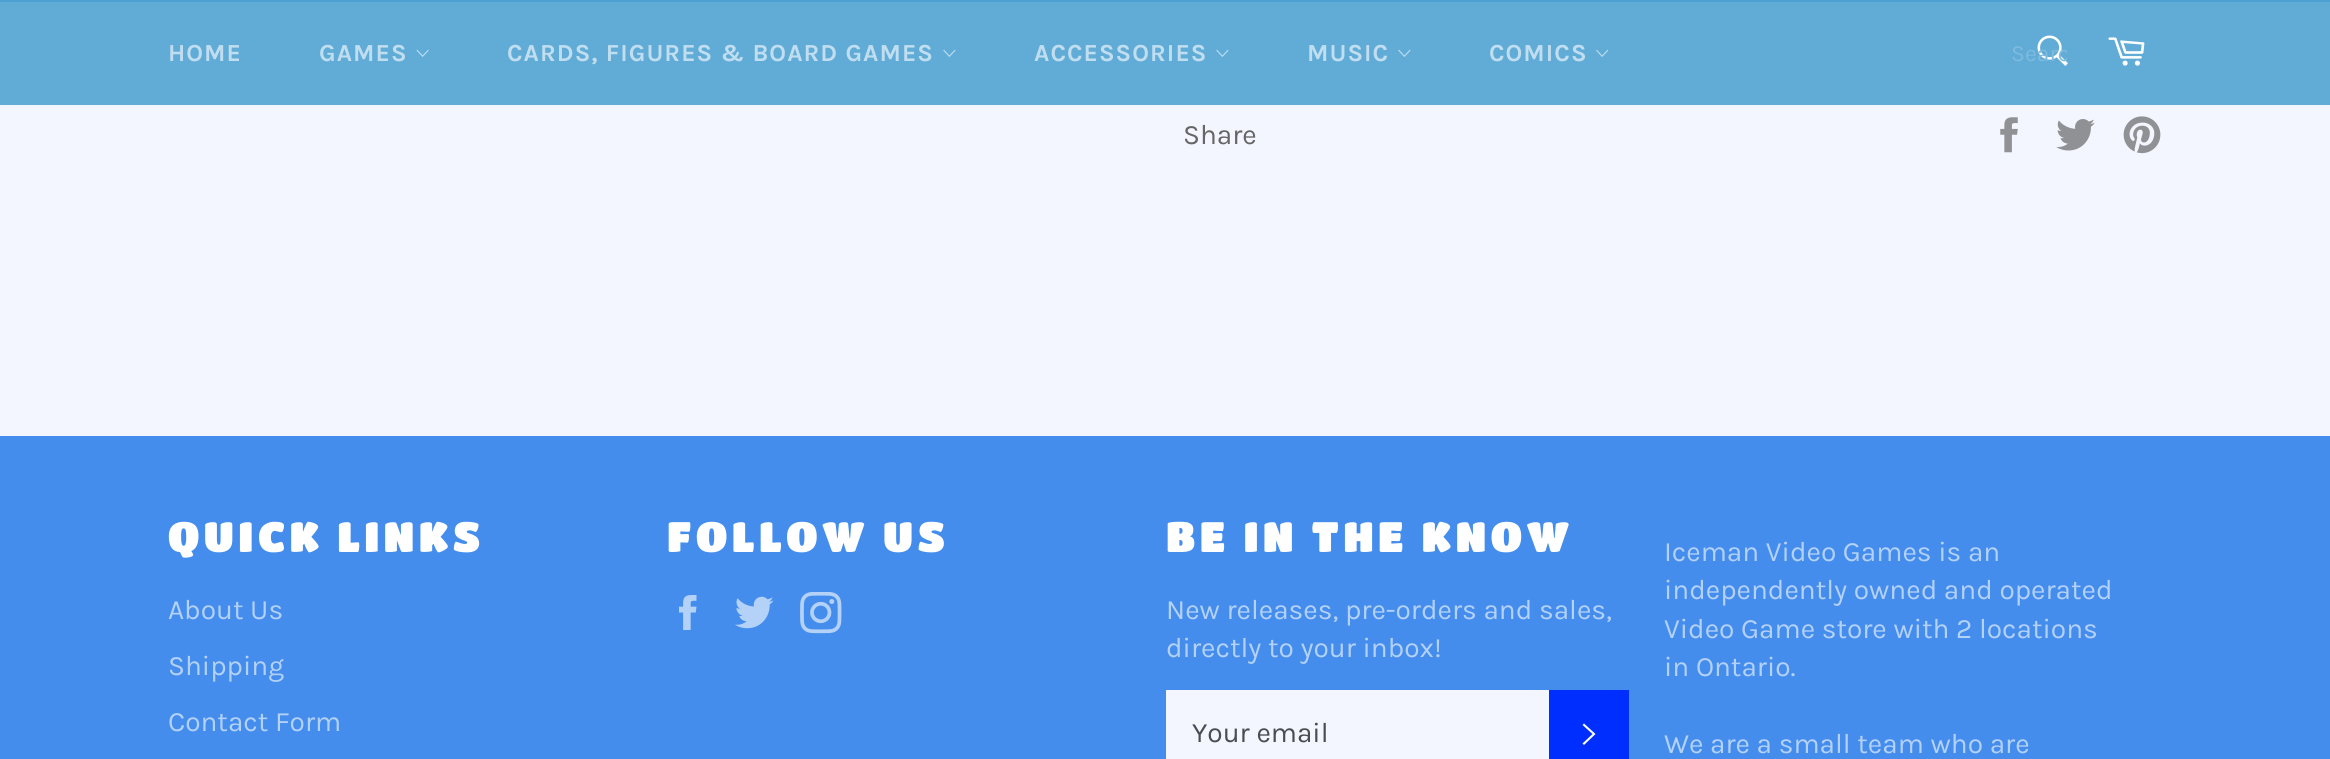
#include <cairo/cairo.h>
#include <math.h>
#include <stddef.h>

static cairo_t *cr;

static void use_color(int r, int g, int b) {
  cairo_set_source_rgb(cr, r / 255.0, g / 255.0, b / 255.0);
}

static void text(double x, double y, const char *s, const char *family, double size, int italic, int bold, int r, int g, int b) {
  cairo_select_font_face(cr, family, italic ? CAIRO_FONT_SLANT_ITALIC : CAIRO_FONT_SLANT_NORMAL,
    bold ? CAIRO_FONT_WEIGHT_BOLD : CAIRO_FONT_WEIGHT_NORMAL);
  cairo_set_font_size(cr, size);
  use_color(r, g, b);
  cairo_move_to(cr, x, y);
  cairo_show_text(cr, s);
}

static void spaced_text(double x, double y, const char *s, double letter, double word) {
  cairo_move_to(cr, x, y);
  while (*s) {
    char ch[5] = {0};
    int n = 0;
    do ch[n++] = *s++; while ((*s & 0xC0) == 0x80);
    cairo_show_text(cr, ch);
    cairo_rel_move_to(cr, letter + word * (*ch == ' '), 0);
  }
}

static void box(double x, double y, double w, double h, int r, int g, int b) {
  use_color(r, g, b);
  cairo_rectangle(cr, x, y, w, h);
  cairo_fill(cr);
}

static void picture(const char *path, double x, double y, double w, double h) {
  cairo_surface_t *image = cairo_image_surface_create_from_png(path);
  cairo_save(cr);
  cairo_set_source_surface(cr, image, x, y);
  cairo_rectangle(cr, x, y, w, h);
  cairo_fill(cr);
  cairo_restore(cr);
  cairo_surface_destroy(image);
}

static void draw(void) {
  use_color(243, 246, 255);
  cairo_paint(cr);
  box(0, 2, 2330, 103, 97, 172, 215);
  box(0, 0, 2330, 2, 77, 161, 210);
  picture("img_01.png", 416, 49, 13, 8);
  picture("img_02.png", 943, 49, 13, 8);
  picture("img_02.png", 1216, 49, 13, 8);
  picture("img_02.png", 1398, 49, 13, 8);
  picture("img_03.png", 1596, 49, 13, 8);
  picture("img_04.png", 2037, 35, 31, 31);
  picture("img_05.png", 2108, 37, 37, 29);
  picture("img_06.png", 2000, 117, 18, 36);
  picture("img_07.png", 2056, 119, 39, 32);
  picture("img_08.png", 2123, 116, 38, 38);
  box(0, 436, 2330, 323, 68, 141, 237);
  picture("img_09.png", 679, 595, 18, 35);
  picture("img_10.png", 735, 596, 39, 33);
  picture("img_11.png", 800, 592, 42, 42);
  box(1166, 690, 383, 69, 243, 246, 255);
  box(1549, 690, 80, 69, 0, 46, 255);
  use_color(255, 255, 255);
  cairo_new_path(cr);
  cairo_move_to(cr, 1582.5, 725);
  cairo_line_to(cr, 1584, 723.5);
  cairo_line_to(cr, 1595.5, 734);
  cairo_line_to(cr, 1584, 745);
  cairo_line_to(cr, 1582.5, 743.5);
  cairo_line_to(cr, 1592.5, 734);
  cairo_close_path(cr);
  cairo_fill(cr);
  cairo_select_font_face(cr, "Karla", CAIRO_FONT_SLANT_NORMAL, CAIRO_FONT_WEIGHT_BOLD);
  cairo_set_font_size(cr, 24.5);
  use_color(192, 222, 239);
  spaced_text(168, 61, "HOME", 1.05, 0);
  spaced_text(319, 61, "GAMES", 1.05, 0);
  spaced_text(507, 61, "CARDS, FIGURES & BOARD GAMES", 1.05, 0);
  spaced_text(1034, 61, "ACCESSORIES", 1.05, 0);
  spaced_text(1307, 61, "MUSIC", 1.05, 0);
  spaced_text(1489, 61, "COMICS", 1.05, 0);
  cairo_save(cr);
  cairo_rectangle(cr, 2011, 40, 56, 27);
  cairo_clip(cr);
  text(2011, 61, "Searc", "Karla", 23, 0, 0, 125, 186, 222);
  cairo_restore(cr);
  text(1183, 144, "Share", "Karla", 28, 0, 0, 102, 102, 102);
  cairo_select_font_face(cr, "Titan One", CAIRO_FONT_SLANT_NORMAL, CAIRO_FONT_WEIGHT_NORMAL);
  cairo_set_font_size(cr, 42);
  use_color(255, 255, 255);
  spaced_text(168, 552, "QUICK LINKS", 4.25, 0);
  text(168, 619, "About Us", "Karla", 28, 0, 0, 180, 209, 248);
  text(168, 675, "Shipping", "Karla", 28, 0, 0, 180, 209, 248);
  text(168, 731, "Contact Form", "Karla", 28, 0, 0, 180, 209, 248);
  cairo_select_font_face(cr, "Titan One", CAIRO_FONT_SLANT_NORMAL, CAIRO_FONT_WEIGHT_NORMAL);
  cairo_set_font_size(cr, 42);
  use_color(255, 255, 255);
  spaced_text(667, 552, "FOLLOW US", 4.25, 0);
  spaced_text(1166, 552, "BE IN THE KNOW", 4.25, 0);
  text(1166, 619, "New releases, pre-orders and sales,", "Karla", 28, 0, 0, 180, 209, 248);
  text(1166, 657, "directly to your inbox!", "Karla", 28, 0, 0, 180, 209, 248);
  text(1192, 742, "Your email", "Karla", 28, 0, 0, 75, 76, 79);
  text(1664, 561, "Iceman Video Games is an", "Karla", 28, 0, 0, 180, 209, 248);
  text(1664, 599, "independently owned and operated", "Karla", 28, 0, 0, 180, 209, 248);
  text(1664, 638, "Video Game store with 2 locations", "Karla", 28, 0, 0, 180, 209, 248);
  text(1664, 676, "in Ontario.", "Karla", 28, 0, 0, 180, 209, 248);
  text(1664, 753, "We are a small team who are", "Karla", 28, 0, 0, 180, 209, 248);
}

int main(void) {
  cairo_surface_t *surface = cairo_image_surface_create(CAIRO_FORMAT_RGB24, 2330, 759);
  cr = cairo_create(surface);
  cairo_font_options_t *options = cairo_font_options_create();
  cairo_font_options_set_hint_metrics(options, CAIRO_HINT_METRICS_OFF);
  cairo_font_options_set_hint_style(options, CAIRO_HINT_STYLE_NONE);
  cairo_set_font_options(cr, options);
  cairo_set_miter_limit(cr, 4);
  draw();
  cairo_surface_write_to_png(surface, "out.png");
  cairo_font_options_destroy(options);
  cairo_destroy(cr);
  cairo_surface_destroy(surface);
  return 0;
}
